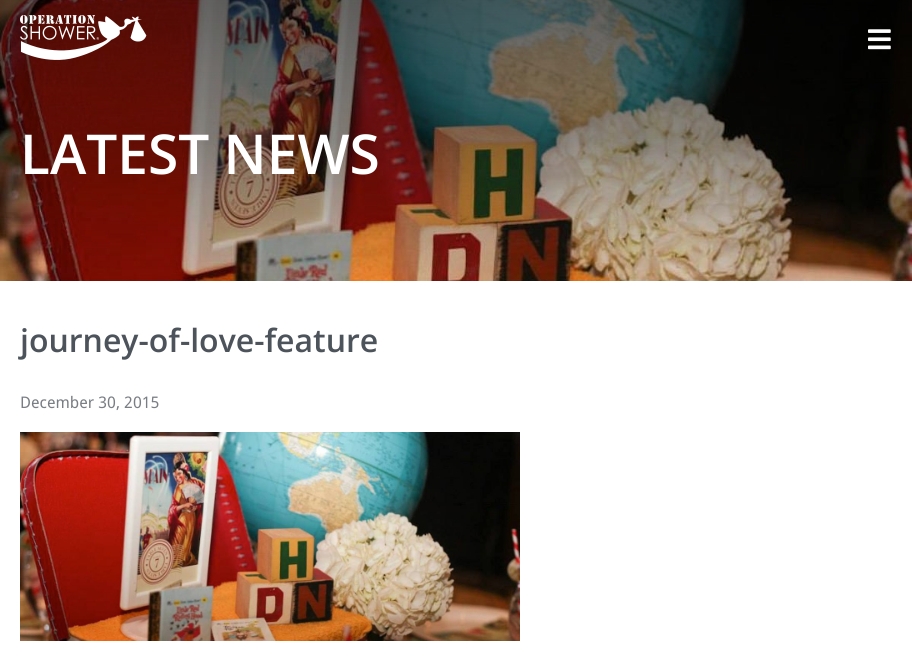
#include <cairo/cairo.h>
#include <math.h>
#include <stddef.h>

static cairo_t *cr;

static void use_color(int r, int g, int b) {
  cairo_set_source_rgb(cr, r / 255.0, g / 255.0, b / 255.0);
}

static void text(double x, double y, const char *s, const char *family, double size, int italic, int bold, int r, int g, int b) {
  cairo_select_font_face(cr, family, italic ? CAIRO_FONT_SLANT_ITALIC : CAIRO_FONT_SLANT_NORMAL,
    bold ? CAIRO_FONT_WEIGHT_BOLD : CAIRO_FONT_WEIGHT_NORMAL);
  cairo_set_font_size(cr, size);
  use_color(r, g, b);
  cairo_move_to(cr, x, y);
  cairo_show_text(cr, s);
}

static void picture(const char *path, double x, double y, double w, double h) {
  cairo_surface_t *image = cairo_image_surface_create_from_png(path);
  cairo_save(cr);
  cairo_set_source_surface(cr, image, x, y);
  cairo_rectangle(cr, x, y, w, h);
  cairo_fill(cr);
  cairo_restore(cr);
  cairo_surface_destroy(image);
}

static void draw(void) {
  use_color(255, 255, 255);
  cairo_paint(cr);
  picture("img_03.png", 0, 0, 912, 281);
  picture("img_01.png", 20, 15, 127, 45);
  picture("img_02.png", 868, 29, 23, 21);
  picture("img_04.png", 20, 432, 500, 209);
  text(20, 174, "LATEST NEWS", "Open Sans SemiBold", 55, 0, 0, 255, 255, 255);
  text(20, 352, "journey-of-love-feature", "Open Sans SemiBold", 32, 0, 0, 76, 83, 91);
  text(20, 408, "December 30, 2015", "Droid Sans", 16, 0, 0, 121, 126, 132);
}

int main(void) {
  cairo_surface_t *surface = cairo_image_surface_create(CAIRO_FORMAT_RGB24, 912, 656);
  cr = cairo_create(surface);
  cairo_font_options_t *options = cairo_font_options_create();
  cairo_font_options_set_hint_metrics(options, CAIRO_HINT_METRICS_OFF);
  cairo_font_options_set_hint_style(options, CAIRO_HINT_STYLE_NONE);
  cairo_set_font_options(cr, options);
  cairo_set_miter_limit(cr, 4);
  draw();
  cairo_surface_write_to_png(surface, "out.png");
  cairo_font_options_destroy(options);
  cairo_destroy(cr);
  cairo_surface_destroy(surface);
  return 0;
}
